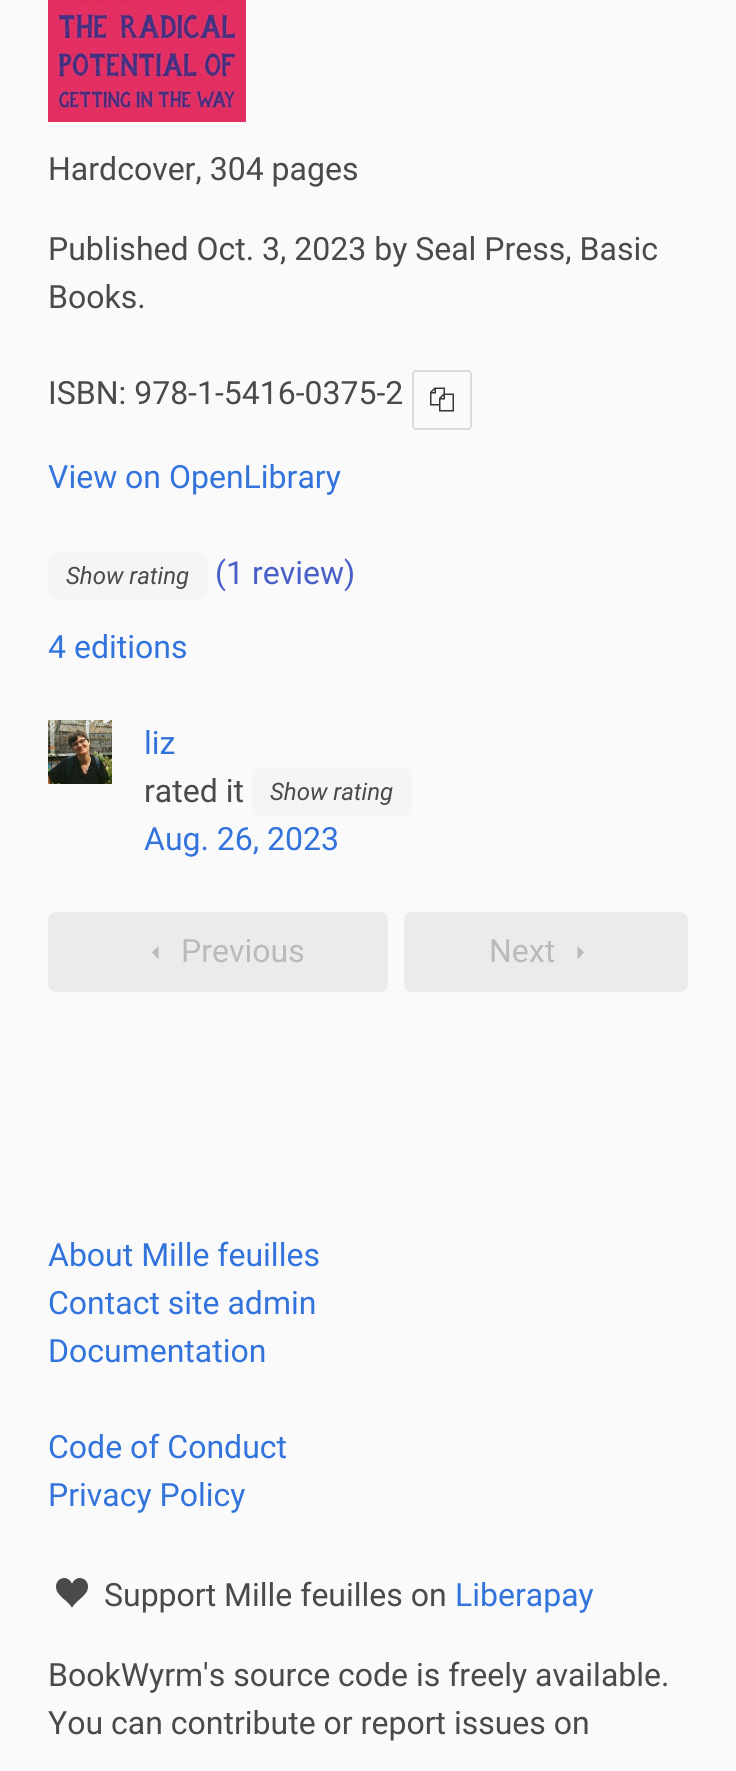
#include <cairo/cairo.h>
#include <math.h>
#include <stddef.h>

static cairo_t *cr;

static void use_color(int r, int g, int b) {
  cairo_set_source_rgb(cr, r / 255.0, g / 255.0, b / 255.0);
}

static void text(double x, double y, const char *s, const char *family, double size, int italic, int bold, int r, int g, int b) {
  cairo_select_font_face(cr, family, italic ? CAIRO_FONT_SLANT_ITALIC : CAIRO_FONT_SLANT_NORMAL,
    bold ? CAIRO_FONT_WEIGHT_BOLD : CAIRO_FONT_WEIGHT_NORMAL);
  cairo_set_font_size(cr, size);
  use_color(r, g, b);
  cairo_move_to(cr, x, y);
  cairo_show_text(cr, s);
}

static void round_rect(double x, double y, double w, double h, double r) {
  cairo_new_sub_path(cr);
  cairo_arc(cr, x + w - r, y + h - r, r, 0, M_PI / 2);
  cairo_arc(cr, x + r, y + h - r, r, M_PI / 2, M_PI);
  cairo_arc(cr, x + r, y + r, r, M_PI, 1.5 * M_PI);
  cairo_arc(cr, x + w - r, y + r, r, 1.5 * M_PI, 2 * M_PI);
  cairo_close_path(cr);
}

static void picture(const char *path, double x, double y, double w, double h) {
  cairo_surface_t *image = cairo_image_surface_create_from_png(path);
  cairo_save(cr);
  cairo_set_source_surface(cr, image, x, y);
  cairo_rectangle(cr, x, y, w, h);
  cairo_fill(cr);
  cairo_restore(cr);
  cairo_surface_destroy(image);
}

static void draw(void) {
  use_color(250, 250, 250);
  cairo_paint(cr);
  picture("img_01.png", 48, 0, 198, 122);
  round_rect(413, 371, 58, 58, 3);
  use_color(219, 219, 219);
  cairo_stroke(cr);
  picture("img_02.png", 430, 387, 24, 25);
  use_color(245, 245, 245);
  round_rect(48, 552, 160, 48, 8);
  cairo_fill(cr);
  picture("img_03.png", 48, 720, 64, 64);
  round_rect(252, 768, 160, 48, 8);
  cairo_fill(cr);
  use_color(235, 235, 235);
  round_rect(49, 913, 338, 78, 7);
  cairo_fill_preserve(cr);
  cairo_stroke(cr);
  use_color(186, 186, 186);
  cairo_new_path(cr);
  cairo_move_to(cr, 158.5, 946);
  cairo_line_to(cr, 158.5, 959.5);
  cairo_line_to(cr, 152, 952.5);
  cairo_close_path(cr);
  cairo_fill(cr);
  use_color(235, 235, 235);
  round_rect(405, 913, 282, 78, 7);
  cairo_fill_preserve(cr);
  cairo_stroke(cr);
  use_color(186, 186, 186);
  cairo_new_path(cr);
  cairo_move_to(cr, 577.5, 959.5);
  cairo_line_to(cr, 577.5, 946);
  cairo_line_to(cr, 584, 952.5);
  cairo_close_path(cr);
  cairo_fill(cr);
  picture("img_04.png", 56, 1578, 32, 30);
  text(48, 180, "Hardcover, 304 pages", "Roboto", 32, 0, 0, 74, 74, 74);
  text(48, 260, "Published Oct. 3, 2023 by Seal Press, Basic", "Roboto", 32, 0, 0, 74, 74, 74);
  text(48, 308, "Books.", "Roboto", 32, 0, 0, 74, 74, 74);
  text(48, 404, "ISBN: 978-1-5416-0375-2", "Roboto", 32, 0, 0, 74, 74, 74);
  text(48, 488, "View on OpenLibrary", "Roboto", 32, 0, 0, 50, 115, 220);
  text(66, 584, "Show rating", "Roboto", 24, 1, 0, 74, 74, 74);
  text(215, 584, "(1 review)", "Roboto", 32, 0, 0, 72, 95, 199);
  text(48, 658, "4 editions", "Roboto", 32, 0, 0, 50, 115, 220);
  text(144, 754, "liz", "Roboto", 32, 0, 0, 50, 115, 220);
  text(144, 802, "rated it", "Roboto", 32, 0, 0, 74, 74, 74);
  text(270, 800, "Show rating", "Roboto", 24, 1, 0, 74, 74, 74);
  text(144, 850, "Aug. 26, 2023", "Roboto", 32, 0, 0, 50, 115, 220);
  text(181, 962, "Previous", "Roboto", 32, 0, 0, 186, 186, 186);
  text(489, 962, "Next", "Roboto", 32, 0, 0, 186, 186, 186);
  text(48, 1266, "About Mille feuilles", "Roboto", 32, 0, 0, 50, 115, 220);
  text(48, 1314, "Contact site admin", "Roboto", 32, 0, 0, 50, 115, 220);
  text(48, 1362, "Documentation", "Roboto", 32, 0, 0, 50, 115, 220);
  text(48, 1458, "Code of Conduct", "Roboto", 32, 0, 0, 50, 115, 220);
  text(48, 1506, "Privacy Policy", "Roboto", 32, 0, 0, 50, 115, 220);
  text(104, 1606, "Support Mille feuilles on", "Roboto", 32, 0, 0, 74, 74, 74);
  text(455, 1606, "Liberapay", "Roboto", 32, 0, 0, 50, 115, 220);
  text(48, 1686, "BookWyrm's source code is freely available.", "Roboto", 32, 0, 0, 74, 74, 74);
  text(48, 1734, "You can contribute or report issues on", "Roboto", 32, 0, 0, 74, 74, 74);
}

int main(void) {
  cairo_surface_t *surface = cairo_image_surface_create(CAIRO_FORMAT_RGB24, 736, 1771);
  cr = cairo_create(surface);
  cairo_font_options_t *options = cairo_font_options_create();
  cairo_font_options_set_hint_metrics(options, CAIRO_HINT_METRICS_OFF);
  cairo_font_options_set_hint_style(options, CAIRO_HINT_STYLE_NONE);
  cairo_set_font_options(cr, options);
  cairo_set_miter_limit(cr, 4);
  draw();
  cairo_surface_write_to_png(surface, "out.png");
  cairo_font_options_destroy(options);
  cairo_destroy(cr);
  cairo_surface_destroy(surface);
  return 0;
}
